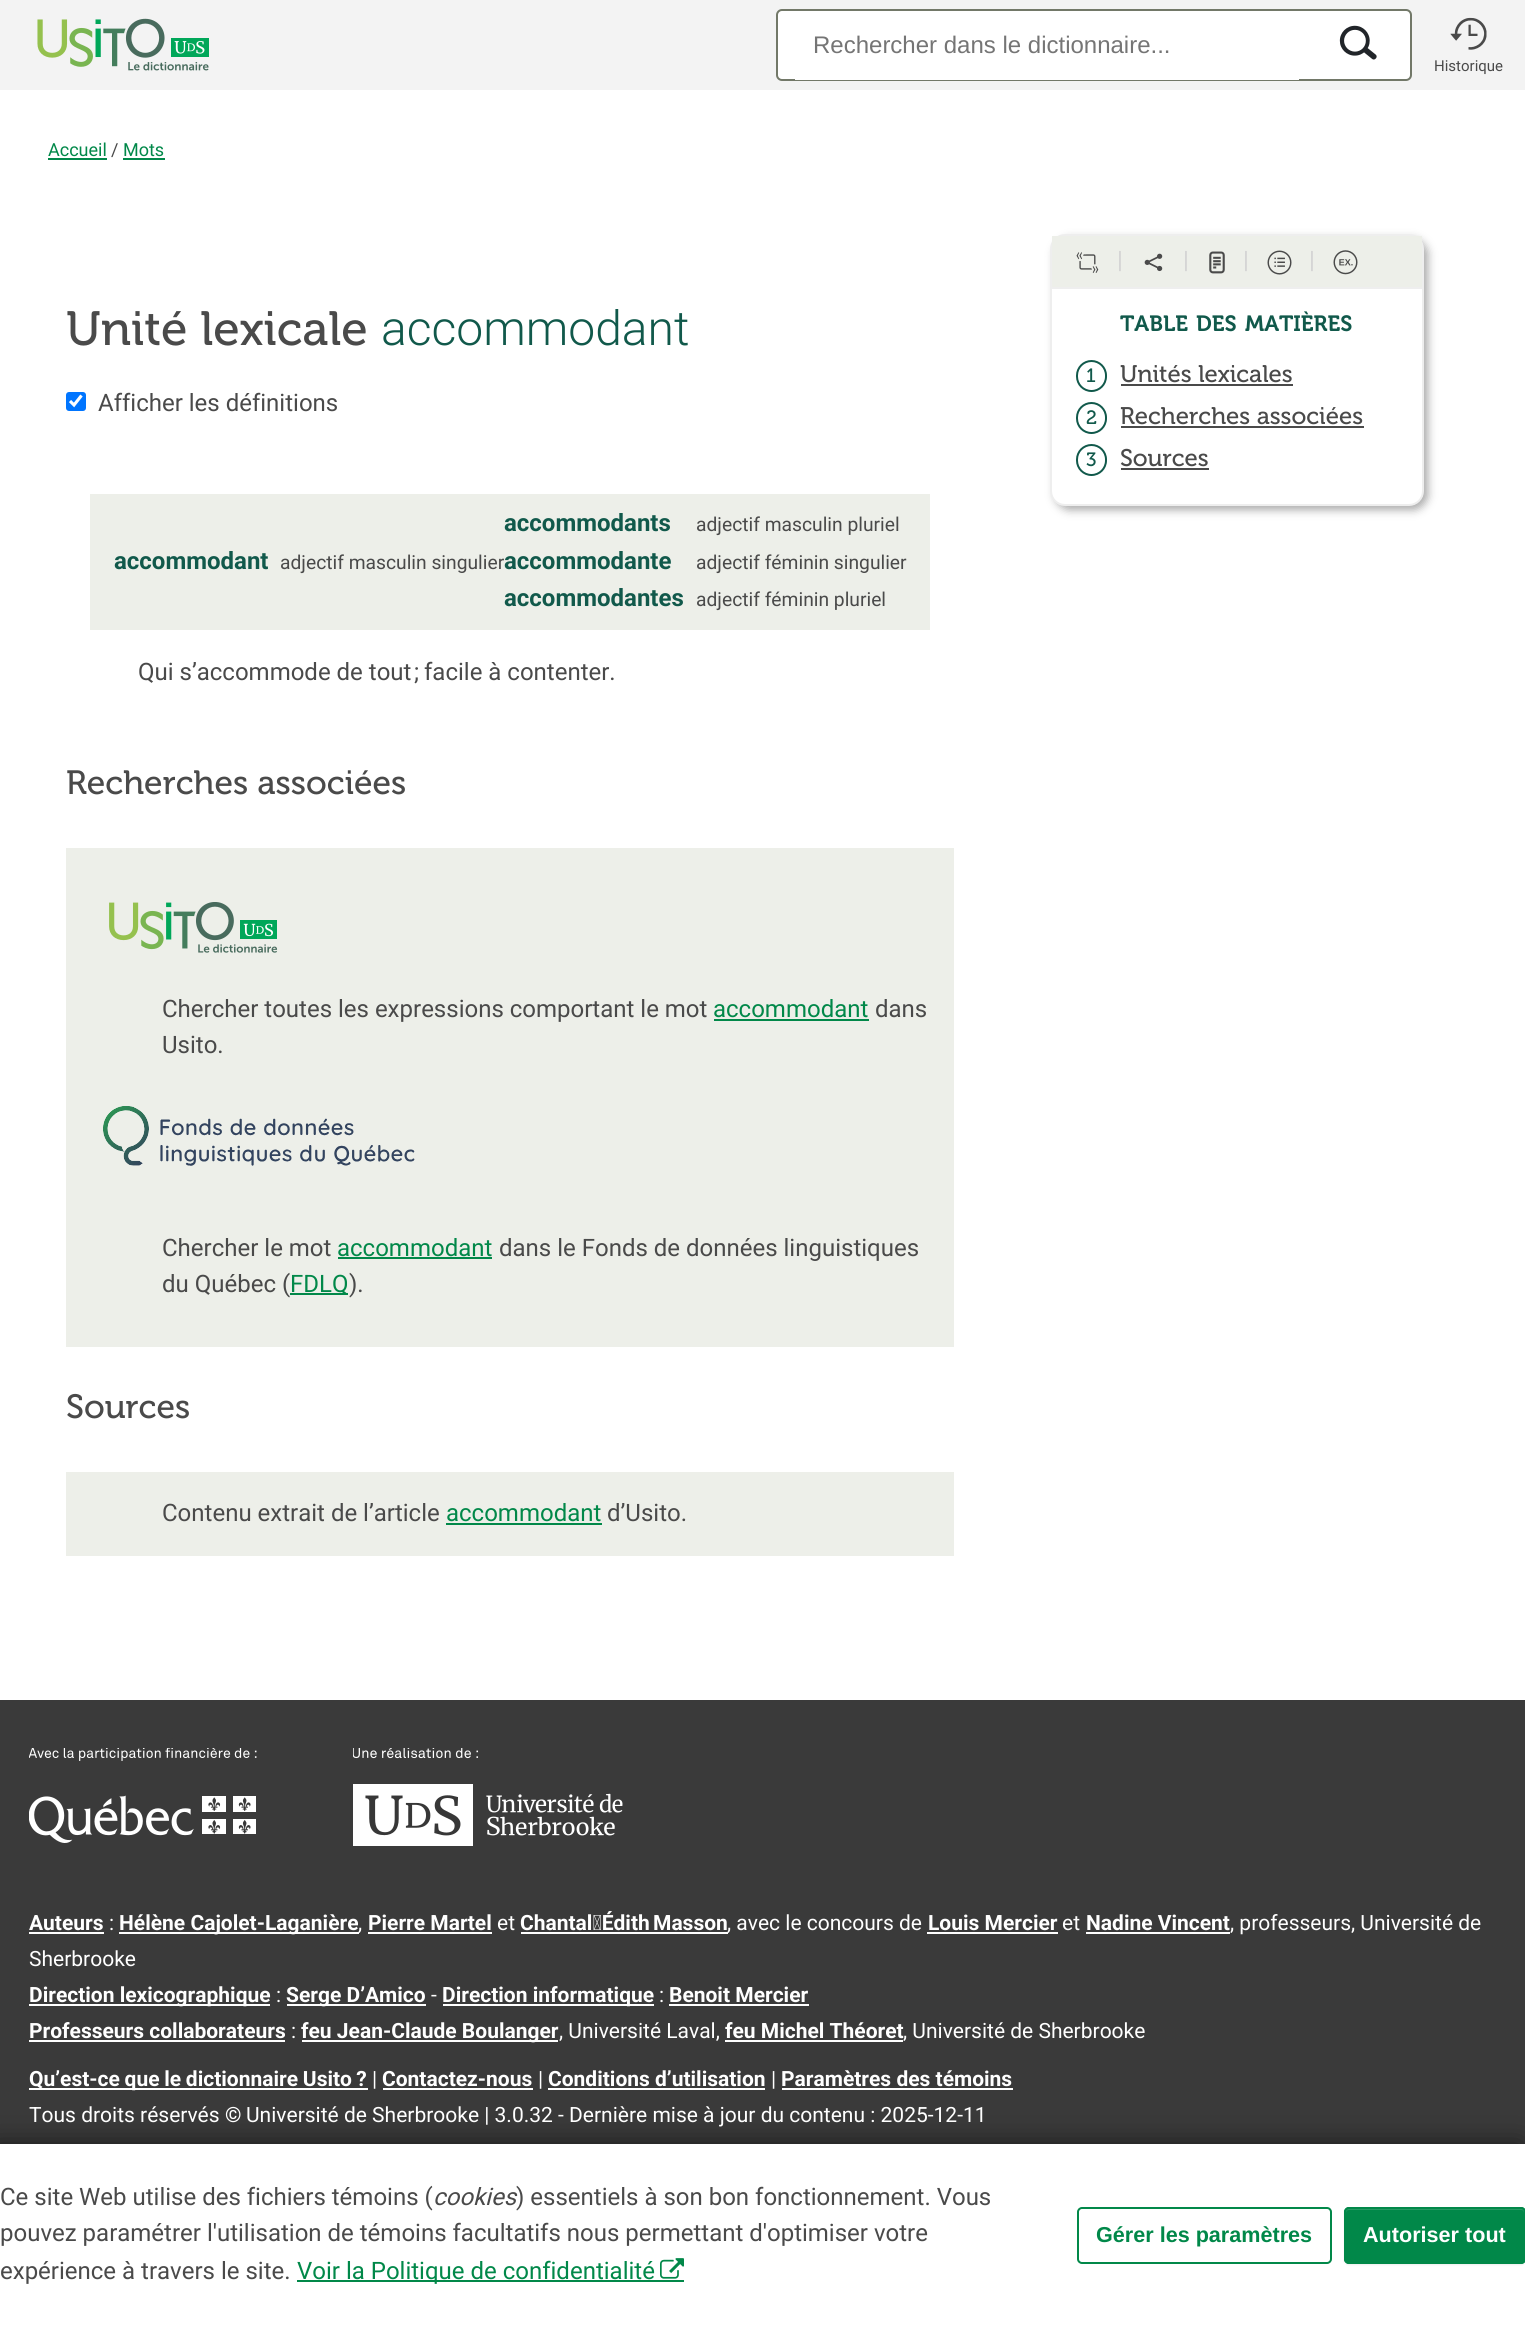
#include <cairo/cairo.h>
#include <math.h>
#include <stddef.h>

static cairo_t *cr;

static void use_color(int r, int g, int b) {
  cairo_set_source_rgb(cr, r / 255.0, g / 255.0, b / 255.0);
}

static void text(double x, double y, const char *s, const char *family, double size, int italic, int bold, int r, int g, int b) {
  cairo_select_font_face(cr, family, italic ? CAIRO_FONT_SLANT_ITALIC : CAIRO_FONT_SLANT_NORMAL,
    bold ? CAIRO_FONT_WEIGHT_BOLD : CAIRO_FONT_WEIGHT_NORMAL);
  cairo_set_font_size(cr, size);
  use_color(r, g, b);
  cairo_move_to(cr, x, y);
  cairo_show_text(cr, s);
}

static void spaced_text(double x, double y, const char *s, double letter, double word) {
  cairo_move_to(cr, x, y);
  while (*s) {
    char ch[5] = {0};
    int n = 0;
    do ch[n++] = *s++; while ((*s & 0xC0) == 0x80);
    cairo_show_text(cr, ch);
    cairo_rel_move_to(cr, letter + word * (*ch == ' '), 0);
  }
}

static void box(double x, double y, double w, double h, int r, int g, int b) {
  use_color(r, g, b);
  cairo_rectangle(cr, x, y, w, h);
  cairo_fill(cr);
}

static void round_rect(double x, double y, double w, double h, double r) {
  cairo_new_sub_path(cr);
  cairo_arc(cr, x + w - r, y + h - r, r, 0, M_PI / 2);
  cairo_arc(cr, x + r, y + h - r, r, M_PI / 2, M_PI);
  cairo_arc(cr, x + r, y + r, r, M_PI, 1.5 * M_PI);
  cairo_arc(cr, x + w - r, y + r, r, 1.5 * M_PI, 2 * M_PI);
  cairo_close_path(cr);
}

static void shadow(double x, double y, double w, double h, double r, double blur, double alpha) {
  cairo_push_group_with_content(cr, CAIRO_CONTENT_ALPHA);
  cairo_set_operator(cr, CAIRO_OPERATOR_SOURCE);
  for (int i = 15; i >= -15 && fmin(w, h) + blur * i / 3 > 0; i -= 2) {
    double e = blur * i / 6;
    cairo_set_source_rgba(cr, 0, 0, 0, alpha * erfc((i - 1) / 8.5) / 2);
    round_rect(x - e, y - e, w + 2 * e, h + 2 * e, fmax(0, fmin(r + e + blur * .6, fmin(w, h) / 2 + e)));
    cairo_fill(cr);
  }
  cairo_pattern_t *soft = cairo_pop_group(cr);
  cairo_mask(cr, soft);
  cairo_pattern_destroy(soft);
}

static void picture(const char *path, double x, double y, double w, double h) {
  cairo_surface_t *image = cairo_image_surface_create_from_png(path);
  cairo_save(cr);
  cairo_set_source_surface(cr, image, x, y);
  cairo_rectangle(cr, x, y, w, h);
  cairo_fill(cr);
  cairo_restore(cr);
  cairo_surface_destroy(image);
}

static void draw(void) {
  use_color(255, 255, 255);
  cairo_paint(cr);
  box(0, 0, 1525, 90, 243, 243, 243);
  picture("img_01.png", 37, 18, 172, 53);
  use_color(255, 255, 255);
  round_rect(777, 10, 634, 70, 5);
  cairo_fill_preserve(cr);
  use_color(114, 120, 104);
  cairo_stroke(cr);
  box(795, 79, 504, 1, 255, 255, 255);
  picture("img_02.png", 1339, 25, 38, 35);
  picture("img_03.png", 1450, 17, 37, 33);
  box(48, 158, 59, 2, 1, 136, 73);
  box(123, 158, 42, 2, 1, 136, 73);
  use_color(0, 117, 255);
  round_rect(66, 392, 20, 19, 3);
  cairo_fill(cr);
  cairo_new_path(cr);
  cairo_move_to(cr, 70, 401);
  cairo_line_to(cr, 74, 405);
  cairo_line_to(cr, 81.5, 395.5);
  use_color(255, 255, 255);
  cairo_set_line_width(cr, 3.1);
  cairo_stroke(cr);
  box(90, 494, 840, 136, 237, 239, 233);
  box(66, 848, 888, 499, 237, 239, 233);
  picture("img_04.png", 109, 902, 169, 51);
  box(714, 1019, 155, 2, 1, 136, 73);
  picture("img_05.png", 103, 1106, 312, 60);
  box(338, 1257, 154, 2, 1, 136, 73);
  box(290, 1293, 58, 2, 1, 136, 73);
  box(66, 1472, 888, 84, 237, 239, 233);
  box(446, 1523, 156, 2, 1, 136, 73);
  use_color(170, 170, 170);
  shadow(1055, 239, 373, 271, 15, 4.5, 1);
  use_color(255, 255, 255);
  round_rect(1051, 235, 372, 270, 14);
  cairo_fill_preserve(cr);
  use_color(238, 238, 238);
  cairo_set_line_width(cr, 2);
  cairo_stroke(cr);
  box(1052, 236, 370, 51, 237, 239, 233);
  picture("img_06.png", 1076, 252, 23, 21);
  picture("img_07.png", 1144, 253, 19, 19);
  picture("img_08.png", 1209, 251, 16, 23);
  picture("img_09.png", 1267, 250, 25, 25);
  picture("img_10.png", 1333, 250, 25, 25);
  box(1052, 287, 370, 2, 238, 238, 238);
  round_rect(1077, 361, 29, 30, 14.5);
  use_color(17, 89, 75);
  cairo_stroke(cr);
  box(1121, 384, 172, 2, 74, 74, 74);
  round_rect(1077, 403, 29, 30, 14.5);
  use_color(17, 89, 75);
  cairo_stroke(cr);
  box(1121, 426, 243, 2, 74, 74, 74);
  round_rect(1077, 445, 29, 30, 14.5);
  use_color(17, 89, 75);
  cairo_stroke(cr);
  box(1121, 468, 88, 2, 74, 74, 74);
  box(0, 1700, 1525, 444, 58, 58, 58);
  picture("img_11.png", 29, 1748, 228, 95);
  picture("img_12.png", 353, 1748, 270, 98);
  box(29, 1932, 75, 2, 255, 255, 255);
  box(119, 1932, 240, 2, 255, 255, 255);
  box(368, 1932, 124, 2, 255, 255, 255);
  box(521, 1932, 207, 2, 255, 255, 255);
  box(927, 1932, 131, 2, 255, 255, 255);
  box(1086, 1932, 144, 2, 255, 255, 255);
  box(29, 2004, 241, 2, 255, 255, 255);
  box(287, 2004, 139, 2, 255, 255, 255);
  box(443, 2004, 211, 2, 255, 255, 255);
  box(669, 2004, 140, 2, 255, 255, 255);
  box(29, 2040, 256, 2, 255, 255, 255);
  box(302, 2040, 256, 2, 255, 255, 255);
  box(725, 2040, 178, 2, 255, 255, 255);
  box(29, 2088, 339, 2, 255, 255, 255);
  box(383, 2088, 150, 2, 255, 255, 255);
  box(548, 2088, 217, 2, 255, 255, 255);
  box(782, 2088, 231, 2, 255, 255, 255);
  use_color(0, 0, 0);
  shadow(-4, 2144, 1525, 181, 0, 13.5, 0.55);
  box(0, 2144, 1525, 181, 255, 255, 255);
  box(297, 2280, 387, 2, 1, 136, 73);
  picture("img_13.png", 660, 2258, 24, 21);
  round_rect(1078, 2208, 253, 55, 4);
  cairo_stroke(cr);
  use_color(0, 0, 0);
  shadow(1344, 2208, 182, 57, 5, 1, 0.07);
  use_color(1, 136, 73);
  round_rect(1344, 2207, 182, 57, 5);
  cairo_fill(cr);
  use_color(39, 154, 100);
  cairo_new_path(cr);
  cairo_move_to(cr, 1349, 2210);
  cairo_line_to(cr, 1521, 2210);
  cairo_curve_to(cr, 1523, 2210, 1524, 2211, 1524, 2213);
  cairo_line_to(cr, 1524, 2211);
  cairo_curve_to(cr, 1524, 2209, 1523, 2208, 1521, 2208);
  cairo_line_to(cr, 1349, 2208);
  cairo_curve_to(cr, 1347, 2208, 1346, 2209, 1346, 2211);
  cairo_line_to(cr, 1346, 2213);
  cairo_curve_to(cr, 1346, 2211, 1347, 2210, 1349, 2210);
  cairo_close_path(cr);
  cairo_fill(cr);
  round_rect(1345, 2208, 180, 55, 4);
  use_color(1, 136, 73);
  cairo_stroke(cr);
  text(813, 53, "Rechercher dans le dictionnaire...", "Liberation Sans", 24, 0, 0, 117, 117, 117);
  text(1434, 71, "Historique", "Roboto", 15, 0, 0, 74, 74, 74);
  text(48, 156, "Accueil", "Roboto", 18, 0, 0, 1, 136, 73);
  text(111, 156, "/", "Roboto", 18, 0, 0, 74, 74, 74);
  text(123, 156, "Mots", "Roboto", 18, 0, 0, 1, 136, 73);
  text(66, 345, "Unité lexicale", "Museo", 48, 0, 0, 74, 74, 74);
  text(381, 345, "accommodant", "Roboto Light", 48, 0, 0, 17, 89, 75);
  text(98, 411, "Afficher les définitions", "Roboto", 24, 0, 0, 74, 74, 74);
  text(114, 569, "accommodant", "Roboto", 24, 0, 1, 17, 89, 75);
  text(280, 569, "adjectif masculin singulier", "Roboto", 19.25, 0, 0, 74, 74, 74);
  text(504, 531, "accommodants", "Roboto", 24, 0, 1, 17, 89, 75);
  text(696, 531, "adjectif masculin pluriel", "Roboto", 19.25, 0, 0, 74, 74, 74);
  text(504, 569, "accommodante", "Roboto", 24, 0, 1, 17, 89, 75);
  text(696, 569, "adjectif féminin singulier", "Roboto", 19.25, 0, 0, 74, 74, 74);
  text(504, 606, "accommodantes", "Roboto", 24, 0, 1, 17, 89, 75);
  text(696, 606, "adjectif féminin pluriel", "Roboto", 19.25, 0, 0, 74, 74, 74);
  text(138, 680, "Qui s’accommode de tout", "Roboto", 24, 0, 0, 74, 74, 74);
  text(414, 680, ";", "Roboto", 24, 0, 0, 74, 74, 74);
  text(424, 680, "facile à contenter.", "Roboto", 24, 0, 0, 74, 74, 74);
  text(66, 794, "Recherches associées", "Museo", 33.6, 0, 0, 74, 74, 74);
  text(162, 1017, "Chercher toutes les expressions comportant le mot", "Roboto", 24, 0, 0, 74, 74, 74);
  text(713, 1017, "accommodant", "Roboto", 24, 0, 0, 1, 136, 73);
  text(875, 1017, "dans", "Roboto", 24, 0, 0, 74, 74, 74);
  text(162, 1053, "Usito.", "Roboto", 24, 0, 0, 74, 74, 74);
  text(162, 1256, "Chercher le mot", "Roboto", 24, 0, 0, 74, 74, 74);
  text(337, 1256, "accommodant", "Roboto", 24, 0, 0, 1, 136, 73);
  text(499, 1256, "dans le Fonds de données linguistiques", "Roboto", 24, 0, 0, 74, 74, 74);
  text(162, 1292, "du Québec (", "Roboto", 24, 0, 0, 74, 74, 74);
  text(290, 1292, "FDLQ", "Roboto", 24, 0, 0, 1, 136, 73);
  text(349, 1292, ").", "Roboto", 24, 0, 0, 74, 74, 74);
  text(66, 1418, "Sources", "Museo", 33.6, 0, 0, 74, 74, 74);
  text(162, 1521, "Contenu extrait de l’article", "Roboto", 24, 0, 0, 74, 74, 74);
  text(446, 1521, "accommodant", "Roboto", 24, 0, 0, 1, 136, 73);
  text(607, 1521, "d’Usito.", "Roboto", 24, 0, 0, 74, 74, 74);
  text(1117, 268, "|", "Roboto", 24, 0, 0, 211, 211, 211);
  text(1183, 268, "|", "Roboto", 24, 0, 0, 211, 211, 211);
  text(1243, 268, "|", "Roboto", 24, 0, 0, 211, 211, 211);
  text(1309, 268, "|", "Roboto", 24, 0, 0, 211, 211, 211);
  text(1120, 331, "TABLE", "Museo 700 SemiBold", 22, 0, 0, 17, 89, 75);
  text(1196, 331, "DES", "Museo 700 SemiBold", 22, 0, 0, 17, 89, 75);
  text(1245, 331, "MATIÈRES", "Museo 700 SemiBold", 22, 0, 0, 17, 89, 75);
  text(1086, 382, "1", "Museo", 19.25, 0, 0, 17, 89, 75);
  text(1120, 382, "Unités lexicales", "Museo", 24, 0, 0, 74, 74, 74);
  text(1086, 424, "2", "Museo", 19.25, 0, 0, 17, 89, 75);
  text(1120, 424, "Recherches associées", "Museo", 24, 0, 0, 74, 74, 74);
  text(1086, 466, "3", "Museo", 19.25, 0, 0, 17, 89, 75);
  text(1120, 466, "Sources", "Museo", 24, 0, 0, 74, 74, 74);
  text(29, 1930, "Auteurs", "Roboto", 21, 0, 1, 255, 255, 255);
  text(109, 1930, ":", "Roboto", 21, 0, 0, 255, 255, 255);
  text(119, 1930, "Hélène Cajolet-Laganière", "Roboto", 21, 0, 1, 255, 255, 255);
  text(358, 1930, ",", "Roboto", 21, 0, 0, 255, 255, 255);
  text(368, 1930, "Pierre Martel", "Roboto", 21, 0, 1, 255, 255, 255);
  text(497, 1930, "et", "Roboto", 21, 0, 0, 255, 255, 255);
  text(520, 1930, "Chantal‑Édith", "Roboto", 21, 0, 1, 255, 255, 255);
  text(653, 1930, "Masson", "Roboto", 21, 0, 1, 255, 255, 255);
  text(727, 1930, ", avec le concours de", "Roboto", 21, 0, 0, 255, 255, 255);
  text(928, 1930, "Louis Mercier", "Roboto", 21, 0, 1, 255, 255, 255);
  text(1062, 1930, "et", "Roboto", 21, 0, 0, 255, 255, 255);
  text(1086, 1930, "Nadine Vincent", "Roboto", 21, 0, 1, 255, 255, 255);
  text(1230, 1930, ", professeurs, Université de", "Roboto", 21, 0, 0, 255, 255, 255);
  text(29, 1966, "Sherbrooke", "Roboto", 21, 0, 0, 255, 255, 255);
  text(29, 2002, "Direction lexicographique", "Roboto", 21, 0, 1, 255, 255, 255);
  text(276, 2002, ":", "Roboto", 21, 0, 0, 255, 255, 255);
  text(286, 2002, "Serge D’Amico", "Roboto", 21, 0, 1, 255, 255, 255);
  text(431, 2002, "-", "Roboto", 21, 0, 0, 255, 255, 255);
  text(442, 2002, "Direction informatique", "Roboto", 21, 0, 1, 255, 255, 255);
  text(659, 2002, ":", "Roboto", 21, 0, 0, 255, 255, 255);
  text(669, 2002, "Benoit Mercier", "Roboto", 21, 0, 1, 255, 255, 255);
  text(29, 2038, "Professeurs collaborateurs", "Roboto", 21, 0, 1, 255, 255, 255);
  text(291, 2038, ":", "Roboto", 21, 0, 0, 255, 255, 255);
  text(301, 2038, "feu Jean-Claude Boulanger", "Roboto", 21, 0, 1, 255, 255, 255);
  text(559, 2038, ", Université Laval,", "Roboto", 21, 0, 0, 255, 255, 255);
  text(725, 2038, "feu Michel Théoret", "Roboto", 21, 0, 1, 255, 255, 255);
  text(903, 2038, ", Université de Sherbrooke", "Roboto", 21, 0, 0, 255, 255, 255);
  cairo_select_font_face(cr, "Roboto", CAIRO_FONT_SLANT_NORMAL, CAIRO_FONT_WEIGHT_BOLD);
  spaced_text(29, 2086, "Qu’est-ce que le dictionnaire Usito ?", 0, -0.5);
  text(372, 2086, "|", "Roboto", 21, 0, 0, 255, 255, 255);
  text(382, 2086, "Contactez-nous", "Roboto", 21, 0, 1, 255, 255, 255);
  text(538, 2086, "|", "Roboto", 21, 0, 0, 255, 255, 255);
  text(548, 2086, "Conditions d’utilisation", "Roboto", 21, 0, 1, 255, 255, 255);
  text(771, 2086, "|", "Roboto", 21, 0, 0, 255, 255, 255);
  text(781, 2086, "Paramètres des témoins", "Roboto", 21, 0, 1, 255, 255, 255);
  text(29, 2122, "Tous droits réservés", "Roboto", 21, 0, 0, 255, 255, 255);
  text(225, 2122, "©", "Roboto", 21, 0, 1, 255, 255, 255);
  text(246, 2122, "Université de Sherbrooke | 3.0.32 - Dernière mise à jour du contenu : 2025-12-11", "Roboto", 21, 0, 0, 255, 255, 255);
  text(0, 2205, "Ce site Web utilise des fichiers témoins (", "Roboto", 24, 0, 0, 74, 74, 74);
  text(433, 2205, "cookies", "Roboto", 24, 1, 0, 74, 74, 74);
  text(516, 2205, ") essentiels à son bon fonctionnement. Vous", "Roboto", 24, 0, 0, 74, 74, 74);
  text(0, 2241, "pouvez paramétrer l'utilisation de témoins facultatifs nous permettant d'optimiser votre", "Roboto", 24, 0, 0, 74, 74, 74);
  text(0, 2279, "expérience à travers le site.", "Roboto", 24, 0, 0, 74, 74, 74);
  text(297, 2279, "Voir la Politique de confidentialité", "Roboto", 24, 0, 0, 1, 136, 73);
  text(1096, 2242, "Gérer les paramètres", "Liberation Sans", 21.6, 0, 1, 1, 136, 73);
  text(1363, 2242, "Autoriser tout", "Liberation Sans", 21.6, 0, 1, 255, 255, 255);
}

int main(void) {
  cairo_surface_t *surface = cairo_image_surface_create(CAIRO_FORMAT_RGB24, 1525, 2325);
  cr = cairo_create(surface);
  cairo_font_options_t *options = cairo_font_options_create();
  cairo_font_options_set_hint_metrics(options, CAIRO_HINT_METRICS_OFF);
  cairo_font_options_set_hint_style(options, CAIRO_HINT_STYLE_NONE);
  cairo_set_font_options(cr, options);
  cairo_set_miter_limit(cr, 4);
  draw();
  cairo_surface_write_to_png(surface, "out.png");
  cairo_font_options_destroy(options);
  cairo_destroy(cr);
  cairo_surface_destroy(surface);
  return 0;
}
